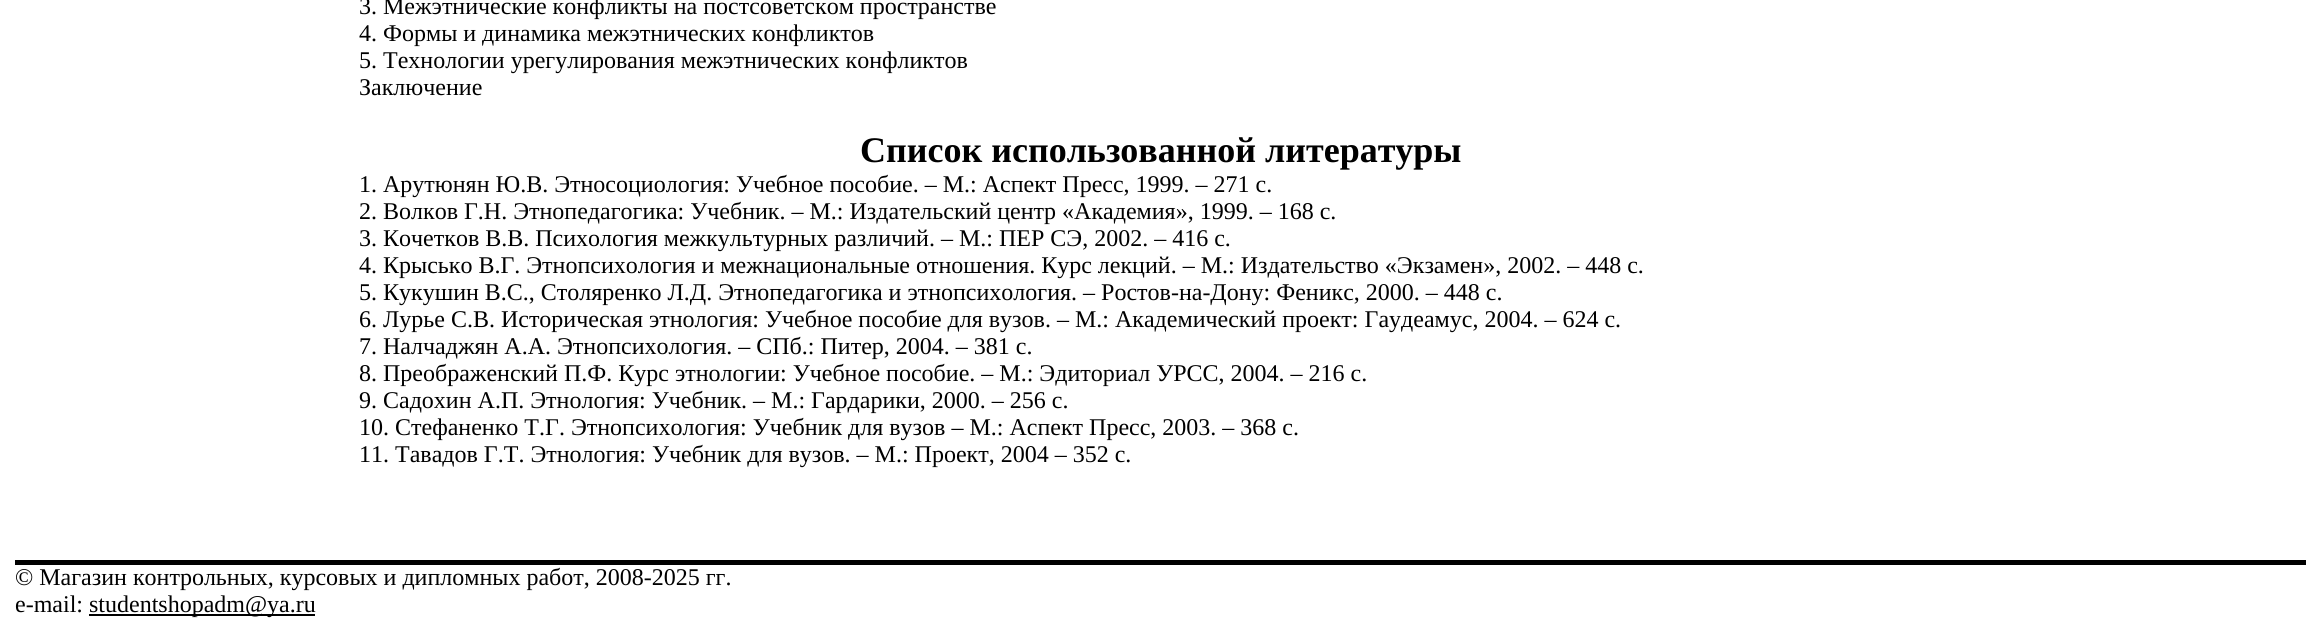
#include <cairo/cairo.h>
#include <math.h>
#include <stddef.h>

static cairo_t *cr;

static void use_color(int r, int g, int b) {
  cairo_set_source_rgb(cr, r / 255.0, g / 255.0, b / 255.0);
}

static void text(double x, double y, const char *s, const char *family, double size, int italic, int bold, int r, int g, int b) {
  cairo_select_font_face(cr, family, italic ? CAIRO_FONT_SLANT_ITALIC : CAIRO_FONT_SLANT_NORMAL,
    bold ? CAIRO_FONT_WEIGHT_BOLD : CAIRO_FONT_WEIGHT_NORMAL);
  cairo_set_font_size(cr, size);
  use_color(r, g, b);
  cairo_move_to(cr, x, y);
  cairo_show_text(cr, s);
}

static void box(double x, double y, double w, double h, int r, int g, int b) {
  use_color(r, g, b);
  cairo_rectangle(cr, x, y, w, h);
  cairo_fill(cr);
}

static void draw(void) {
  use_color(255, 255, 255);
  cairo_paint(cr);
  box(15, 560, 2291, 5, 0, 0, 0);
  box(89, 614, 226, 2, 0, 0, 0);
  text(359, 14, "3. Межэтнические конфликты на постсоветском пространстве", "Liberation Serif", 24, 0, 0, 0, 0, 0);
  text(359, 41, "4. Формы и динамика межэтнических конфликтов", "Liberation Serif", 24, 0, 0, 0, 0, 0);
  text(359, 68, "5. Технологии урегулирования межэтнических конфликтов", "Liberation Serif", 24, 0, 0, 0, 0, 0);
  text(359, 95, "Заключение", "Liberation Serif", 24, 0, 0, 0, 0, 0);
  text(860, 162, "Список использованной литературы", "Liberation Serif", 36, 0, 1, 0, 0, 0);
  text(359, 192, "1. Арутюнян Ю.В. Этносоциология: Учебное пособие. – М.: Аспект Пресс, 1999. – 271 с.", "Liberation Serif", 24, 0, 0, 0, 0, 0);
  text(359, 219, "2. Волков Г.Н. Этнопедагогика: Учебник. – М.: Издательский центр «Академия», 1999. – 168 с.", "Liberation Serif", 24, 0, 0, 0, 0, 0);
  text(359, 246, "3. Кочетков В.В. Психология межкультурных различий. – М.: ПЕР СЭ, 2002. – 416 с.", "Liberation Serif", 24, 0, 0, 0, 0, 0);
  text(359, 273, "4. Крысько В.Г. Этнопсихология и межнациональные отношения. Курс лекций. – М.: Издательство «Экзамен», 2002. – 448 с.", "Liberation Serif", 24, 0, 0, 0, 0, 0);
  text(359, 300, "5. Кукушин В.С., Столяренко Л.Д. Этнопедагогика и этнопсихология. – Ростов-на-Дону: Феникс, 2000. – 448 с.", "Liberation Serif", 24, 0, 0, 0, 0, 0);
  text(359, 327, "6. Лурье С.В. Историческая этнология: Учебное пособие для вузов. – М.: Академический проект: Гаудеамус, 2004. – 624 с.", "Liberation Serif", 24, 0, 0, 0, 0, 0);
  text(359, 354, "7. Налчаджян А.А. Этнопсихология. – СПб.: Питер, 2004. – 381 с.", "Liberation Serif", 24, 0, 0, 0, 0, 0);
  text(359, 381, "8. Преображенский П.Ф. Курс этнологии: Учебное пособие. – М.: Эдиториал УРСС, 2004. – 216 с.", "Liberation Serif", 24, 0, 0, 0, 0, 0);
  text(359, 408, "9. Садохин А.П. Этнология: Учебник. – М.: Гардарики, 2000. – 256 с.", "Liberation Serif", 24, 0, 0, 0, 0, 0);
  text(359, 435, "10. Стефаненко Т.Г. Этнопсихология: Учебник для вузов – М.: Аспект Пресс, 2003. – 368 с.", "Liberation Serif", 24, 0, 0, 0, 0, 0);
  text(359, 462, "11. Тавадов Г.Т. Этнология: Учебник для вузов. – М.: Проект, 2004 – 352 с.", "Liberation Serif", 24, 0, 0, 0, 0, 0);
  text(15, 585, "© Магазин контрольных, курсовых и дипломных работ, 2008-2025 гг.", "Liberation Serif", 24, 0, 0, 0, 0, 0);
  text(15, 612, "e-mail:", "Liberation Serif", 24, 0, 0, 0, 0, 0);
  text(89, 612, "studentshopadm@ya.ru", "Liberation Serif", 24, 0, 0, 0, 0, 0);
}

int main(void) {
  cairo_surface_t *surface = cairo_image_surface_create(CAIRO_FORMAT_RGB24, 2320, 619);
  cr = cairo_create(surface);
  cairo_font_options_t *options = cairo_font_options_create();
  cairo_font_options_set_hint_metrics(options, CAIRO_HINT_METRICS_OFF);
  cairo_font_options_set_hint_style(options, CAIRO_HINT_STYLE_NONE);
  cairo_set_font_options(cr, options);
  cairo_set_miter_limit(cr, 4);
  draw();
  cairo_surface_write_to_png(surface, "out.png");
  cairo_font_options_destroy(options);
  cairo_destroy(cr);
  cairo_surface_destroy(surface);
  return 0;
}
